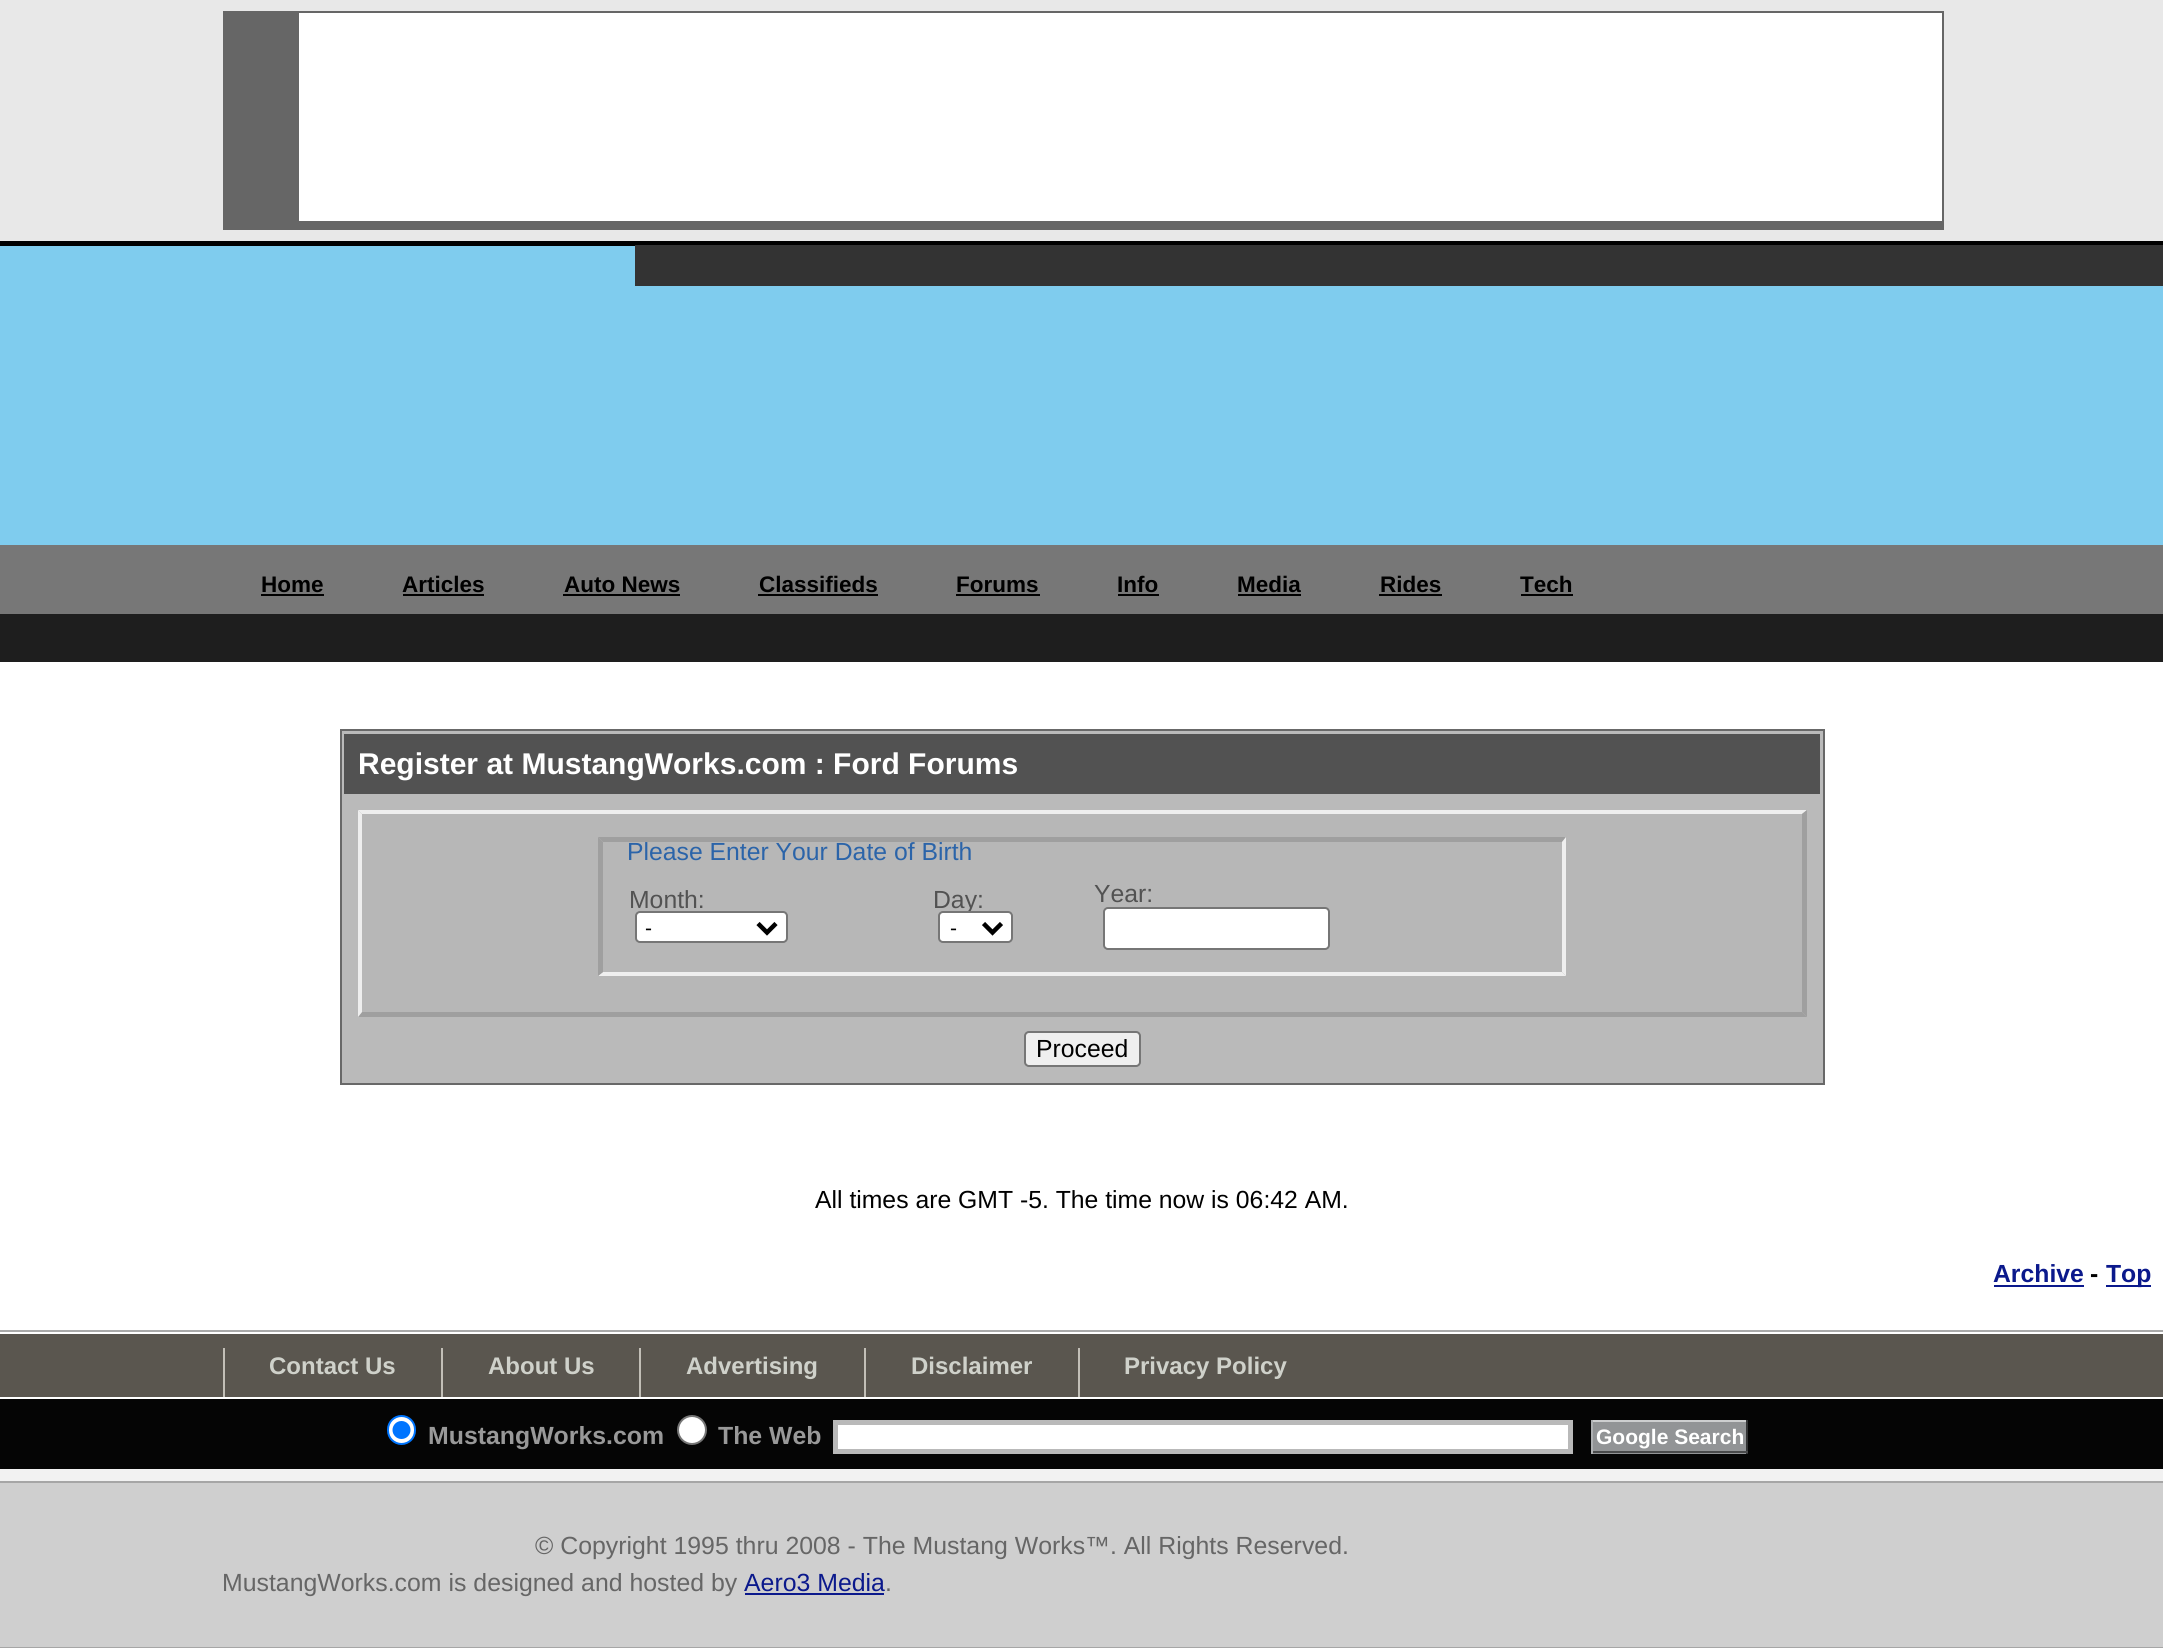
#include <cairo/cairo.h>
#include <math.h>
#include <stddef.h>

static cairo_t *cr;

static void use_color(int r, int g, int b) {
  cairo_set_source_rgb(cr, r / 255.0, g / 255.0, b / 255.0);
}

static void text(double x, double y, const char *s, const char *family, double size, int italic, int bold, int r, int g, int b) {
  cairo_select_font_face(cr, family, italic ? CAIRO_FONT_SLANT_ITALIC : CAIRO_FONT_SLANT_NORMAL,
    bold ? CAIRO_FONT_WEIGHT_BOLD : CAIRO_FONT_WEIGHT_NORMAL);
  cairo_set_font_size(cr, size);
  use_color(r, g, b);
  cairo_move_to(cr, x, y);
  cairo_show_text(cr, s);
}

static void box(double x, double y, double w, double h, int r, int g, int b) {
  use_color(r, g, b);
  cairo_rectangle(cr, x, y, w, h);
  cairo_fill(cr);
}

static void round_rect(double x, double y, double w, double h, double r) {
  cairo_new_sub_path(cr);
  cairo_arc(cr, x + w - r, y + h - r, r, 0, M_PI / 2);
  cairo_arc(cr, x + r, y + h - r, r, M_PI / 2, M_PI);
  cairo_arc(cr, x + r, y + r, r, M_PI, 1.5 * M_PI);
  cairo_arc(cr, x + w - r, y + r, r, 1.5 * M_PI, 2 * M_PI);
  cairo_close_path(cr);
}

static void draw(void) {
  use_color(255, 255, 255);
  cairo_paint(cr);
  box(0, 0, 2163, 241, 232, 232, 232);
  box(223, 11, 1721, 219, 102, 102, 102);
  box(299, 13, 1643, 208, 255, 255, 255);
  box(0, 246, 2163, 299, 127, 204, 238);
  box(0, 241, 2163, 5, 0, 0, 0);
  box(635, 245, 1528, 41, 51, 51, 51);
  box(0, 545, 2163, 69, 119, 119, 119);
  box(261, 594, 63, 2, 0, 0, 0);
  box(403, 594, 81, 2, 0, 0, 0);
  box(563, 594, 117, 2, 0, 0, 0);
  box(758, 594, 120, 2, 0, 0, 0);
  box(956, 594, 84, 2, 0, 0, 0);
  box(1118, 594, 41, 2, 0, 0, 0);
  box(1238, 594, 63, 2, 0, 0, 0);
  box(1379, 594, 63, 2, 0, 0, 0);
  box(1521, 594, 52, 2, 0, 0, 0);
  box(0, 614, 2163, 48, 30, 30, 30);
  use_color(186, 186, 186);
  cairo_rectangle(cr, 341, 730, 1483, 354);
  cairo_fill_preserve(cr);
  use_color(104, 104, 104);
  cairo_stroke(cr);
  box(344, 734, 1476, 60, 82, 82, 82);
  box(358, 810, 1449, 207, 183, 183, 183);
  use_color(238, 238, 238);
  cairo_new_path(cr);
  cairo_move_to(cr, 358, 810);
  cairo_line_to(cr, 1807, 810);
  cairo_line_to(cr, 1802, 814);
  cairo_line_to(cr, 362, 814);
  cairo_close_path(cr);
  cairo_fill(cr);
  use_color(159, 159, 159);
  cairo_new_path(cr);
  cairo_move_to(cr, 1807, 810);
  cairo_line_to(cr, 1807, 1017);
  cairo_line_to(cr, 1802, 1012);
  cairo_line_to(cr, 1802, 814);
  cairo_close_path(cr);
  cairo_fill(cr);
  cairo_new_path(cr);
  cairo_move_to(cr, 1807, 1017);
  cairo_line_to(cr, 358, 1017);
  cairo_line_to(cr, 362, 1012);
  cairo_line_to(cr, 1802, 1012);
  cairo_close_path(cr);
  cairo_fill(cr);
  use_color(238, 238, 238);
  cairo_new_path(cr);
  cairo_move_to(cr, 358, 1017);
  cairo_line_to(cr, 358, 810);
  cairo_line_to(cr, 362, 814);
  cairo_line_to(cr, 362, 1012);
  cairo_close_path(cr);
  cairo_fill(cr);
  use_color(159, 159, 159);
  cairo_new_path(cr);
  cairo_move_to(cr, 598, 837);
  cairo_line_to(cr, 1566, 837);
  cairo_line_to(cr, 1562, 842);
  cairo_line_to(cr, 603, 842);
  cairo_close_path(cr);
  cairo_fill(cr);
  use_color(239, 239, 239);
  cairo_new_path(cr);
  cairo_move_to(cr, 1566, 837);
  cairo_line_to(cr, 1566, 976);
  cairo_line_to(cr, 1562, 972);
  cairo_line_to(cr, 1562, 842);
  cairo_close_path(cr);
  cairo_fill(cr);
  cairo_new_path(cr);
  cairo_move_to(cr, 1566, 976);
  cairo_line_to(cr, 598, 976);
  cairo_line_to(cr, 603, 972);
  cairo_line_to(cr, 1562, 972);
  cairo_close_path(cr);
  cairo_fill(cr);
  use_color(159, 159, 159);
  cairo_new_path(cr);
  cairo_move_to(cr, 598, 976);
  cairo_line_to(cr, 598, 837);
  cairo_line_to(cr, 603, 842);
  cairo_line_to(cr, 603, 972);
  cairo_close_path(cr);
  cairo_fill(cr);
  use_color(255, 255, 255);
  round_rect(636, 912, 151, 30, 4);
  cairo_fill_preserve(cr);
  use_color(118, 118, 118);
  cairo_stroke(cr);
  cairo_new_path(cr);
  cairo_move_to(cr, 758, 923.5);
  cairo_line_to(cr, 767, 932.5);
  cairo_line_to(cr, 776, 923.5);
  use_color(0, 0, 0);
  cairo_set_line_width(cr, 4.5);
  cairo_stroke(cr);
  use_color(255, 255, 255);
  round_rect(1104, 908, 225, 41, 4);
  cairo_fill_preserve(cr);
  use_color(118, 118, 118);
  cairo_set_line_width(cr, 2);
  cairo_stroke(cr);
  use_color(239, 239, 239);
  round_rect(1025, 1032, 115, 34, 4);
  cairo_fill_preserve(cr);
  use_color(118, 118, 118);
  cairo_stroke(cr);
  box(1994, 1285, 90, 2, 11, 25, 140);
  box(2106, 1285, 45, 2, 11, 25, 140);
  box(0, 1330, 2163, 2, 169, 169, 169);
  box(0, 1469, 2163, 12, 242, 242, 242);
  box(0, 1334, 2163, 63, 90, 86, 79);
  box(223, 1348, 2, 49, 194, 191, 183);
  box(441, 1348, 2, 49, 194, 191, 183);
  box(639, 1348, 2, 49, 194, 191, 183);
  box(864, 1348, 2, 49, 194, 191, 183);
  box(1078, 1348, 2, 49, 194, 191, 183);
  box(0, 1399, 2163, 70, 5, 5, 5);
  use_color(255, 255, 255);
  round_rect(388, 1416, 27, 28, 13.5);
  cairo_fill_preserve(cr);
  use_color(0, 117, 255);
  cairo_stroke(cr);
  cairo_arc(cr, 401.5, 1430, 9, 0, 2 * M_PI);
  cairo_fill(cr);
  use_color(255, 255, 255);
  cairo_arc(cr, 692, 1430, 14, 0, 2 * M_PI);
  cairo_fill_preserve(cr);
  use_color(118, 118, 118);
  cairo_stroke(cr);
  use_color(255, 255, 255);
  cairo_rectangle(cr, 835.5, 1422.5, 735, 29);
  cairo_fill_preserve(cr);
  use_color(185, 185, 185);
  cairo_set_line_width(cr, 5);
  cairo_stroke(cr);
  box(1593, 1422, 153, 32, 146, 148, 150);
  box(1591, 1420, 157, 2, 205, 206, 207);
  box(1746, 1420, 2, 34, 51, 52, 53);
  box(1591, 1451, 157, 2, 73, 74, 75);
  box(1591, 1420, 2, 34, 174, 176, 178);
  box(0, 1483, 2163, 164, 207, 207, 207);
  box(0, 1481, 2163, 2, 166, 166, 166);
  box(0, 1647, 2163, 1, 166, 166, 166);
  box(745, 1593, 139, 2, 11, 25, 140);
  text(261, 592, "Home", "Liberation Sans", 22.5, 0, 1, 0, 0, 0);
  text(402, 592, "Articles", "Liberation Sans", 22.5, 0, 1, 0, 0, 0);
  text(564, 592, "Auto News", "Liberation Sans", 22.5, 0, 1, 0, 0, 0);
  text(759, 592, "Classifieds", "Liberation Sans", 22.5, 0, 1, 0, 0, 0);
  text(956, 592, "Forums", "Liberation Sans", 22.5, 0, 1, 0, 0, 0);
  text(1117, 592, "Info", "Liberation Sans", 22.5, 0, 1, 0, 0, 0);
  text(1237, 592, "Media", "Liberation Sans", 22.5, 0, 1, 0, 0, 0);
  text(1380, 592, "Rides", "Liberation Sans", 22.5, 0, 1, 0, 0, 0);
  text(1520, 592, "Tech", "Liberation Sans", 22.5, 0, 1, 0, 0, 0);
  text(358, 774, "Register at MustangWorks.com : Ford Forums", "Liberation Sans", 30, 0, 1, 255, 255, 255);
  text(627, 860, "Please Enter Your Date of Birth", "Liberation Sans", 24.75, 0, 0, 43, 100, 169);
  text(629, 908, "Month:", "Liberation Sans", 24.75, 0, 0, 82, 82, 82);
  text(645, 935, "-", "Liberation Sans", 21, 0, 0, 0, 0, 0);
  text(933, 908, "Day:", "Liberation Sans", 24.75, 0, 0, 82, 82, 82);
  use_color(255, 255, 255);
  round_rect(939, 912, 73, 30, 4);
  cairo_fill_preserve(cr);
  use_color(118, 118, 118);
  cairo_set_line_width(cr, 2);
  cairo_stroke(cr);
  cairo_new_path(cr);
  cairo_move_to(cr, 983.5, 923.5);
  cairo_line_to(cr, 992.5, 932.5);
  cairo_line_to(cr, 1001.5, 923.5);
  use_color(0, 0, 0);
  cairo_set_line_width(cr, 4.5);
  cairo_stroke(cr);
  text(950, 935, "-", "Liberation Sans", 21, 0, 0, 0, 0, 0);
  text(1094, 902, "Year:", "Liberation Sans", 24.75, 0, 0, 82, 82, 82);
  text(1036, 1057, "Proceed", "Liberation Sans", 24.75, 0, 0, 0, 0, 0);
  text(815, 1208, "All times are GMT -5. The time now is 06:42 AM.", "Liberation Sans", 24.75, 0, 0, 0, 0, 0);
  text(1993, 1282, "Archive", "Liberation Sans", 24.75, 0, 1, 11, 25, 140);
  text(2090, 1282, "-", "Liberation Sans", 24.75, 0, 1, 0, 0, 0);
  text(2106, 1282, "Top", "Liberation Sans", 24.75, 0, 1, 11, 25, 140);
  text(269, 1374, "Contact Us", "Liberation Sans", 24, 0, 1, 207, 209, 202);
  text(488, 1374, "About Us", "Liberation Sans", 24, 0, 1, 207, 209, 202);
  text(686, 1374, "Advertising", "Liberation Sans", 24, 0, 1, 207, 209, 202);
  text(911, 1374, "Disclaimer", "Liberation Sans", 24, 0, 1, 207, 209, 202);
  text(1124, 1374, "Privacy Policy", "Liberation Sans", 24, 0, 1, 207, 209, 202);
  text(428, 1444, "MustangWorks.com", "Liberation Sans", 24.85, 0, 1, 153, 153, 153);
  text(718, 1444, "The Web", "Liberation Sans", 24.85, 0, 1, 153, 153, 153);
  text(1596, 1444, "Google Search", "Liberation Sans", 21, 0, 1, 255, 255, 255);
  text(535, 1554, "© Copyright 1995 thru 2008 - The Mustang Works™. All Rights Reserved.", "Liberation Sans", 24.85, 0, 0, 102, 102, 102);
  text(222, 1591, "MustangWorks.com is designed and hosted by", "Liberation Sans", 24.85, 0, 0, 102, 102, 102);
  text(744, 1591, "Aero3 Media", "Liberation Sans", 24.85, 0, 0, 11, 25, 140);
  text(885, 1591, ".", "Liberation Sans", 24.85, 0, 0, 102, 102, 102);
}

int main(void) {
  cairo_surface_t *surface = cairo_image_surface_create(CAIRO_FORMAT_RGB24, 2163, 1648);
  cr = cairo_create(surface);
  cairo_font_options_t *options = cairo_font_options_create();
  cairo_font_options_set_hint_metrics(options, CAIRO_HINT_METRICS_OFF);
  cairo_font_options_set_hint_style(options, CAIRO_HINT_STYLE_NONE);
  cairo_set_font_options(cr, options);
  cairo_set_miter_limit(cr, 4);
  draw();
  cairo_surface_write_to_png(surface, "out.png");
  cairo_font_options_destroy(options);
  cairo_destroy(cr);
  cairo_surface_destroy(surface);
  return 0;
}
